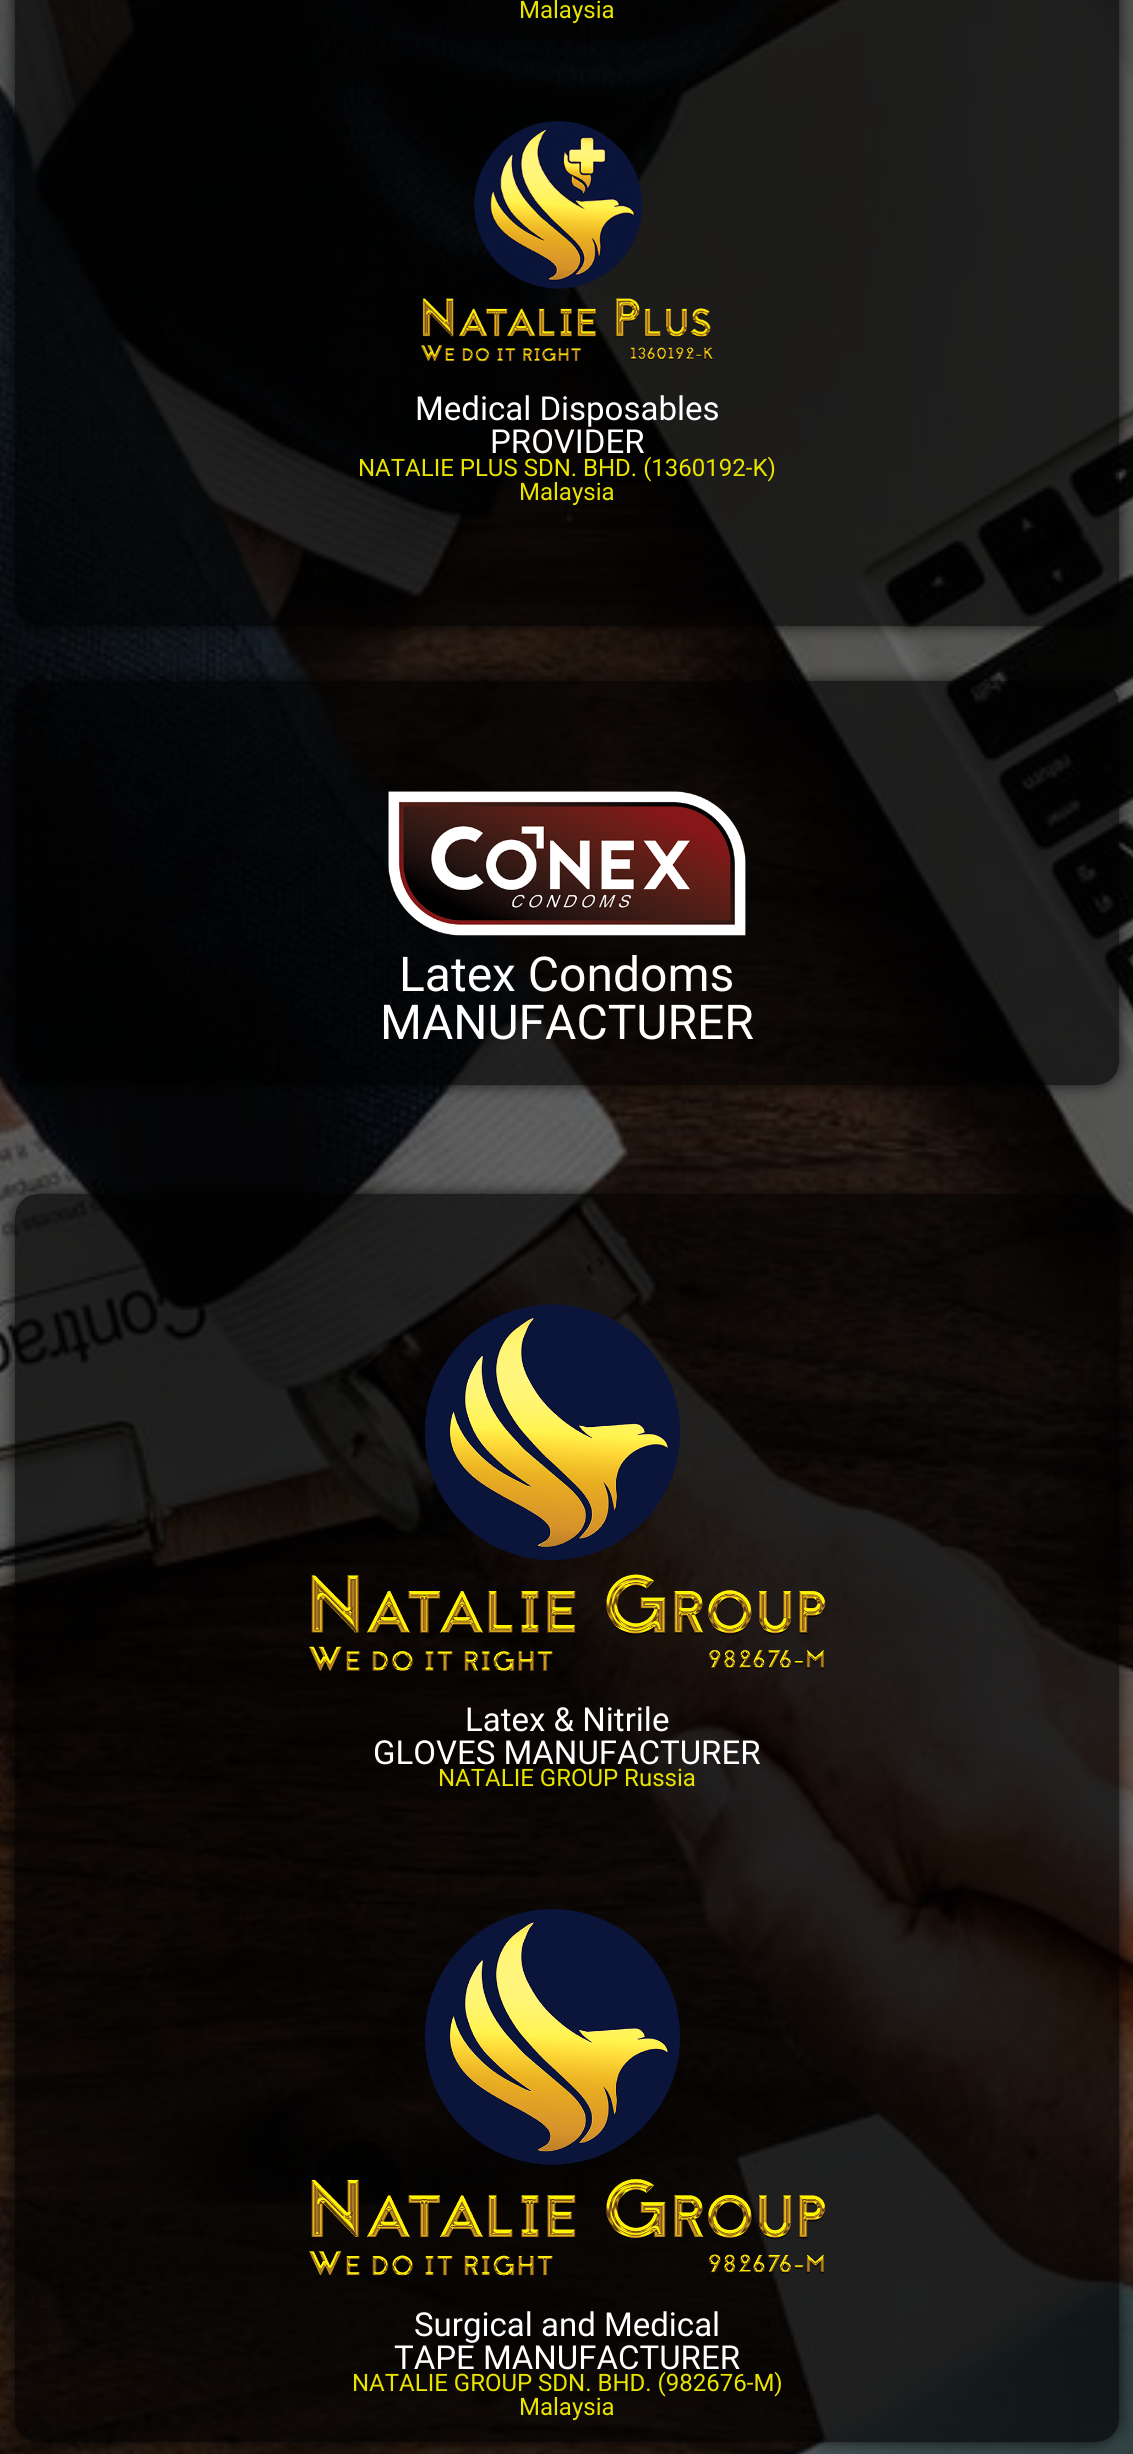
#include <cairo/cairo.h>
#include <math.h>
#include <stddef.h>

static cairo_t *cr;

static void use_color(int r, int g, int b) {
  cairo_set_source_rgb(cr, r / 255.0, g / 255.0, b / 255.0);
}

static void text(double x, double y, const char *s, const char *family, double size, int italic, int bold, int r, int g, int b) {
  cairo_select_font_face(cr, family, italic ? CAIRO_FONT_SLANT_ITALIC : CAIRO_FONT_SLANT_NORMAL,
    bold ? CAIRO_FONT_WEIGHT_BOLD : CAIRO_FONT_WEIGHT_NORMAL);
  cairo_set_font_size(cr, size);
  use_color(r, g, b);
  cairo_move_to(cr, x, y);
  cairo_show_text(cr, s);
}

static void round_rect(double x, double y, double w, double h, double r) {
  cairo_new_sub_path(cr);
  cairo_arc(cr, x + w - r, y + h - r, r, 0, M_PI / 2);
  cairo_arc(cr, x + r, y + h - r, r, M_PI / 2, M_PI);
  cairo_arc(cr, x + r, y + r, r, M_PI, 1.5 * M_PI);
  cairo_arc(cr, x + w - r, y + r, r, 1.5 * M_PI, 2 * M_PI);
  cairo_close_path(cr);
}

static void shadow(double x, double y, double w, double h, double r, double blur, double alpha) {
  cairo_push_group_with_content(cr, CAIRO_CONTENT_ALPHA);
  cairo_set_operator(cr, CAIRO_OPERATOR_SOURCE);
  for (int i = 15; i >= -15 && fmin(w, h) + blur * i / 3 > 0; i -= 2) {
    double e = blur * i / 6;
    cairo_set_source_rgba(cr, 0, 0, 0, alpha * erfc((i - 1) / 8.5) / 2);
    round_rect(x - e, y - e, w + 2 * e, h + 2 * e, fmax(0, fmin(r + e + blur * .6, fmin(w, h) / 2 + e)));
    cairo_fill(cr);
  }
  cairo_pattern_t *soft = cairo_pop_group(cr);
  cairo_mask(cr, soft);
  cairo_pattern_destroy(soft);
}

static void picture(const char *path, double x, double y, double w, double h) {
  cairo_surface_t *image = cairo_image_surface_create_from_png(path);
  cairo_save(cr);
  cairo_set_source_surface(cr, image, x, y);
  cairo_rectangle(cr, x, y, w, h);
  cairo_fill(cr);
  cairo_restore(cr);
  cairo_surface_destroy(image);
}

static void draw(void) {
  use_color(255, 255, 255);
  cairo_paint(cr);
  picture("img_01.png", 0, 0, 1133, 2454);
  cairo_save(cr);
  cairo_set_fill_rule(cr, CAIRO_FILL_RULE_EVEN_ODD);
  cairo_new_path(cr);
  cairo_move_to(cr, 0, 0);
  cairo_line_to(cr, 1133, 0);
  cairo_line_to(cr, 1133, 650);
  cairo_line_to(cr, 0, 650);
  cairo_close_path(cr);
  cairo_move_to(cr, 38, -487);
  cairo_line_to(cr, 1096, -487);
  cairo_curve_to(cr, 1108.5, -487, 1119, -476.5, 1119, -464);
  cairo_line_to(cr, 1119, 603);
  cairo_curve_to(cr, 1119, 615.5, 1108.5, 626, 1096, 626);
  cairo_line_to(cr, 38, 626);
  cairo_curve_to(cr, 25.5, 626, 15, 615.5, 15, 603);
  cairo_line_to(cr, 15, -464);
  cairo_curve_to(cr, 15, -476.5, 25.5, -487, 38, -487);
  cairo_close_path(cr);
  cairo_clip(cr);
  use_color(0, 0, 0);
  shadow(15, -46, 1104, 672, 23, 7.5, 0.75);
  cairo_restore(cr);
  cairo_set_source_rgba(cr, 0, 0, 0, 0.65);
  round_rect(15, -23, 1104, 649, 23);
  cairo_fill(cr);
  picture("img_02.png", 420, 121, 293, 241);
  cairo_save(cr);
  cairo_set_fill_rule(cr, CAIRO_FILL_RULE_EVEN_ODD);
  cairo_new_path(cr);
  cairo_move_to(cr, 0, 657);
  cairo_line_to(cr, 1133, 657);
  cairo_line_to(cr, 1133, 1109);
  cairo_line_to(cr, 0, 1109);
  cairo_close_path(cr);
  cairo_move_to(cr, 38, 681);
  cairo_line_to(cr, 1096, 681);
  cairo_curve_to(cr, 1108.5, 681, 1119, 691.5, 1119, 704);
  cairo_line_to(cr, 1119, 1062);
  cairo_curve_to(cr, 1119, 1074.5, 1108.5, 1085, 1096, 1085);
  cairo_line_to(cr, 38, 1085);
  cairo_curve_to(cr, 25.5, 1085, 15, 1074.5, 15, 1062);
  cairo_line_to(cr, 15, 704);
  cairo_curve_to(cr, 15, 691.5, 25.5, 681, 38, 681);
  cairo_close_path(cr);
  cairo_clip(cr);
  use_color(0, 0, 0);
  shadow(15, 681, 1104, 404, 23, 7.5, 0.75);
  cairo_restore(cr);
  round_rect(15, 681, 1104, 404, 23);
  cairo_fill(cr);
  picture("img_03.png", 388, 791, 358, 145);
  cairo_save(cr);
  cairo_set_fill_rule(cr, CAIRO_FILL_RULE_EVEN_ODD);
  cairo_new_path(cr);
  cairo_move_to(cr, 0, 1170);
  cairo_line_to(cr, 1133, 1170);
  cairo_line_to(cr, 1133, 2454);
  cairo_line_to(cr, 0, 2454);
  cairo_close_path(cr);
  cairo_move_to(cr, 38, 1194);
  cairo_line_to(cr, 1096, 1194);
  cairo_curve_to(cr, 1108.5, 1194, 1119, 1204.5, 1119, 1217);
  cairo_line_to(cr, 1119, 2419);
  cairo_curve_to(cr, 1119, 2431.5, 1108.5, 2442, 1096, 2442);
  cairo_line_to(cr, 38, 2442);
  cairo_curve_to(cr, 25.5, 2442, 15, 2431.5, 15, 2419);
  cairo_line_to(cr, 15, 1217);
  cairo_curve_to(cr, 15, 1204.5, 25.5, 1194, 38, 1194);
  cairo_close_path(cr);
  cairo_clip(cr);
  use_color(0, 0, 0);
  shadow(15, 1194, 1104, 1248, 23, 7.5, 0.75);
  cairo_restore(cr);
  round_rect(15, 1194, 1104, 1248, 23);
  cairo_fill(cr);
  picture("img_04.png", 309, 1304, 517, 368);
  picture("img_05.png", 308, 1909, 518, 368);
  text(519, 18, "Malaysia", "Roboto", 24, 0, 0, 233, 227, 0);
  text(415, 420, "Medical Disposables", "Roboto", 33, 0, 0, 255, 255, 255);
  text(490, 453, "PROVIDER", "Roboto", 33, 0, 0, 255, 255, 255);
  text(358, 476, "NATALIE PLUS SDN. BHD. (1360192-K)", "Roboto", 24, 0, 0, 233, 227, 0);
  text(519, 500, "Malaysia", "Roboto", 24, 0, 0, 233, 227, 0);
  text(399, 991, "Latex Condoms", "Roboto", 48, 0, 0, 255, 255, 255);
  text(380, 1039, "MANUFACTURER", "Roboto", 48, 0, 0, 255, 255, 255);
  text(465, 1731, "Latex & Nitrile", "Roboto", 33, 0, 0, 255, 255, 255);
  text(373, 1764, "GLOVES MANUFACTURER", "Roboto", 33, 0, 0, 255, 255, 255);
  text(438, 1786, "NATALIE GROUP Russia", "Roboto", 24, 0, 0, 233, 227, 0);
  text(414, 2336, "Surgical and Medical", "Roboto", 33, 0, 0, 255, 255, 255);
  text(394, 2369, "TAPE MANUFACTURER", "Roboto", 33, 0, 0, 255, 255, 255);
  text(352, 2391, "NATALIE GROUP SDN. BHD. (982676-M)", "Roboto", 24, 0, 0, 233, 227, 0);
  text(519, 2415, "Malaysia", "Roboto", 24, 0, 0, 233, 227, 0);
}

int main(void) {
  cairo_surface_t *surface = cairo_image_surface_create(CAIRO_FORMAT_RGB24, 1133, 2454);
  cr = cairo_create(surface);
  cairo_font_options_t *options = cairo_font_options_create();
  cairo_font_options_set_hint_metrics(options, CAIRO_HINT_METRICS_OFF);
  cairo_font_options_set_hint_style(options, CAIRO_HINT_STYLE_NONE);
  cairo_set_font_options(cr, options);
  cairo_set_miter_limit(cr, 4);
  draw();
  cairo_surface_write_to_png(surface, "out.png");
  cairo_font_options_destroy(options);
  cairo_destroy(cr);
  cairo_surface_destroy(surface);
  return 0;
}
